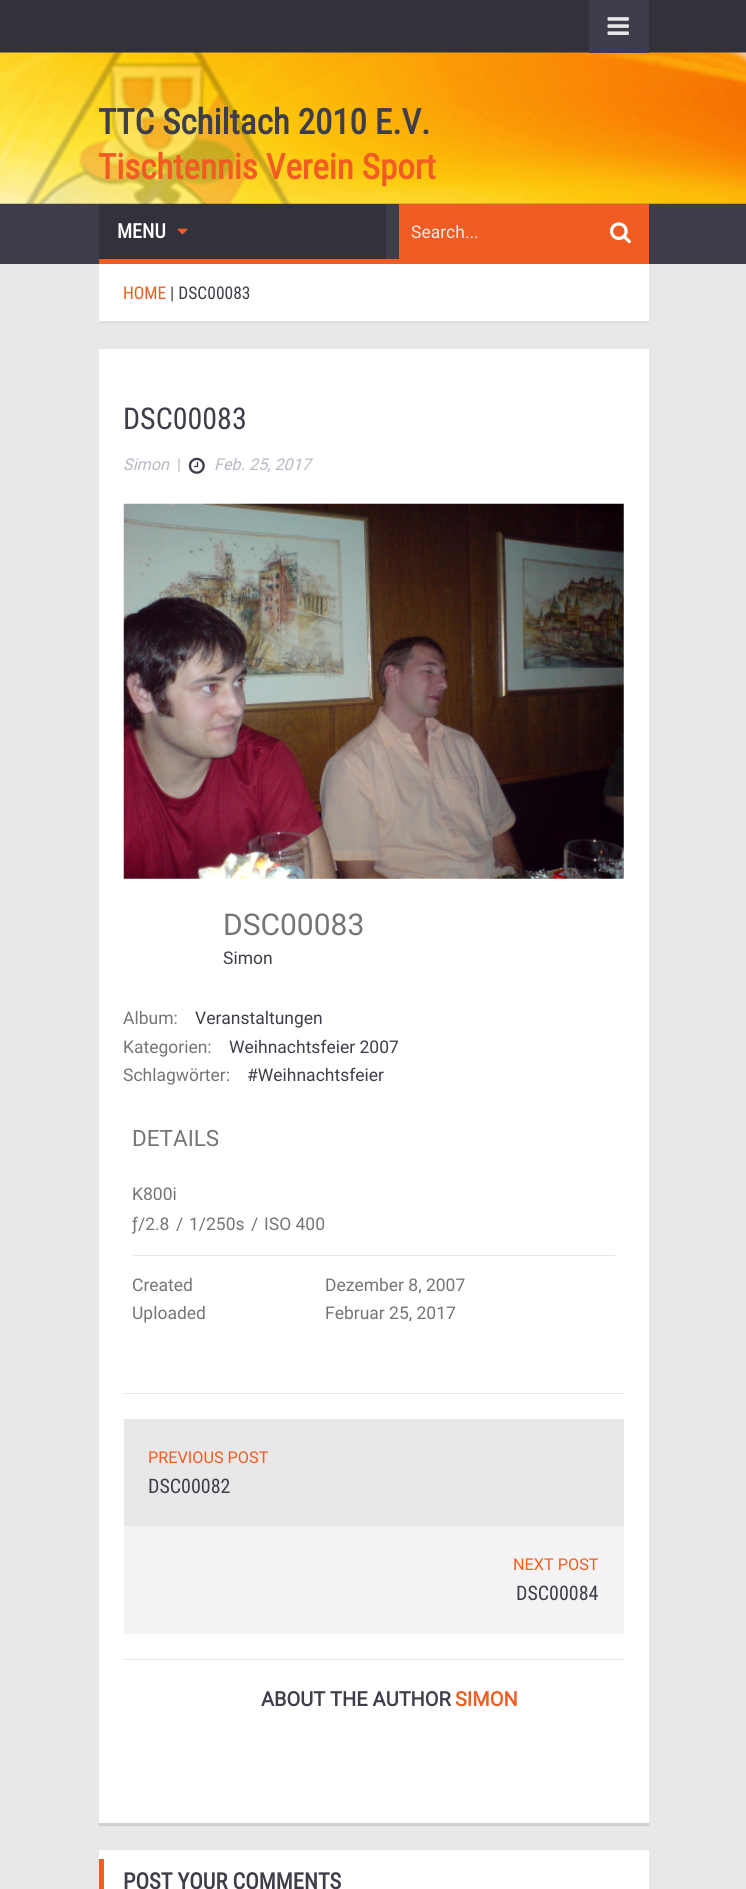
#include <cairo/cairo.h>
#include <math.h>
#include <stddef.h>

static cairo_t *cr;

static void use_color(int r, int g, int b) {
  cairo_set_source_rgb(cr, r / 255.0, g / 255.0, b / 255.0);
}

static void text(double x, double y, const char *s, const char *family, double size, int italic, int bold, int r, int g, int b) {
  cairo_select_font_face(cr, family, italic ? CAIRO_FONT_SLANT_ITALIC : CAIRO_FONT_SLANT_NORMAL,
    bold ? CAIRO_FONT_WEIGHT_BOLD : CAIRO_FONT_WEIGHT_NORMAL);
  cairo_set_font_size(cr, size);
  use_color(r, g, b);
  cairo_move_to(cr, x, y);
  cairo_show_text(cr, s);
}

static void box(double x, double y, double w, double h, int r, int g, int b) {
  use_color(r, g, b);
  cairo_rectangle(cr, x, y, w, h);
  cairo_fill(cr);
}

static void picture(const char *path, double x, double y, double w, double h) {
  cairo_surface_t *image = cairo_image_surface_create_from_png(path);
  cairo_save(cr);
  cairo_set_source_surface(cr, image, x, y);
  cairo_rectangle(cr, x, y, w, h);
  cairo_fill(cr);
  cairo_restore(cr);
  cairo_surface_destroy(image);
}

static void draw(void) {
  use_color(233, 231, 232);
  cairo_paint(cr);
  box(0, 203, 746, 61, 62, 62, 74);
  box(0, 0, 746, 53, 50, 50, 60);
  picture("img_02.png", 0, 52, 746, 152);
  box(589, 0, 60, 53, 62, 62, 74);
  picture("img_01.png", 607, 17, 22, 18);
  box(99, 204, 287, 55, 50, 50, 60);
  box(99, 259, 550, 5, 241, 92, 34);
  picture("img_03.png", 177, 228, 11, 7);
  box(399, 204, 250, 55, 241, 92, 34);
  picture("img_04.png", 610, 222, 21, 22);
  box(99, 264, 550, 57, 255, 255, 255);
  box(99, 321, 550, 3, 223, 223, 223);
  box(99, 349, 550, 1474, 255, 255, 255);
  box(99, 1823, 550, 3, 209, 209, 209);
  picture("img_05.png", 188, 457, 17, 17);
  picture("img_06.png", 123, 503, 501, 376);
  box(133, 1255, 482, 1, 230, 230, 230);
  box(124, 1393, 500, 1, 233, 231, 232);
  box(124, 1526, 500, 108, 243, 243, 243);
  box(124, 1419, 500, 107, 233, 231, 232);
  box(124, 1659, 500, 1, 233, 231, 232);
  box(99, 1850, 550, 39, 255, 255, 255);
  box(99, 1859, 5, 30, 241, 92, 34);
  text(98, 134, "TTC Schiltach 2010 E.V.", "Roboto Condensed", 35, 0, 1, 62, 62, 74);
  text(98, 179, "Tischtennis Verein Sport", "Roboto Condensed", 35, 0, 1, 241, 92, 34);
  text(117, 238, "MENU", "Roboto Condensed", 20, 0, 1, 255, 255, 255);
  text(411, 238, "Search...", "Roboto", 17.5, 0, 0, 233, 231, 232);
  text(123, 299, "HOME", "Roboto Condensed", 17.5, 0, 0, 241, 92, 34);
  text(170, 299, "| DSC00083", "Roboto Condensed", 17.5, 0, 0, 62, 62, 74);
  text(123, 429, "DSC00083", "Roboto Condensed", 30, 0, 0, 62, 62, 74);
  text(123, 470, "Simon", "Roboto", 16.25, 1, 0, 184, 184, 198);
  text(177, 470, "|", "Roboto", 16.25, 0, 0, 184, 184, 198);
  text(214, 470, "Feb. 25, 2017", "Roboto", 16.25, 1, 0, 184, 184, 198);
  text(223, 935, "DSC00083", "Roboto", 30, 0, 0, 117, 117, 117);
  text(223, 964, "Simon", "Roboto", 17.5, 0, 0, 62, 62, 74);
  text(123, 1024, "Album:", "Roboto", 17.5, 0, 0, 117, 117, 117);
  text(195, 1024, "Veranstaltungen", "Roboto", 17.5, 0, 0, 62, 62, 74);
  text(123, 1053, "Kategorien:", "Roboto", 17.5, 0, 0, 117, 117, 117);
  text(229, 1053, "Weihnachtsfeier 2007", "Roboto", 17.5, 0, 0, 62, 62, 74);
  text(123, 1081, "Schlagwörter:", "Roboto", 17.5, 0, 0, 117, 117, 117);
  text(247, 1081, "#Weihnachtsfeier", "Roboto", 17.5, 0, 0, 62, 62, 74);
  text(132, 1146, "DETAILS", "Roboto", 22.5, 0, 0, 117, 117, 117);
  text(132, 1200, "K800i", "Roboto", 17.5, 0, 0, 117, 117, 117);
  text(132, 1230, "ƒ/2.8", "Roboto", 17.5, 0, 0, 117, 117, 117);
  text(176, 1230, "/", "Roboto", 17.5, 0, 0, 117, 117, 117);
  text(189, 1230, "1/250s", "Roboto", 17.5, 0, 0, 117, 117, 117);
  text(251, 1230, "/", "Roboto", 17.5, 0, 0, 117, 117, 117);
  text(264, 1230, "ISO 400", "Roboto", 17.5, 0, 0, 117, 117, 117);
  text(132, 1291, "Created", "Roboto", 17.5, 0, 0, 117, 117, 117);
  text(325, 1291, "Dezember 8, 2007", "Roboto", 17.5, 0, 0, 117, 117, 117);
  text(132, 1319, "Uploaded", "Roboto", 17.5, 0, 0, 117, 117, 117);
  text(325, 1319, "Februar 25, 2017", "Roboto", 17.5, 0, 0, 117, 117, 117);
  text(148, 1463, "PREVIOUS POST", "Roboto", 16.25, 0, 0, 241, 92, 34);
  text(148, 1493, "DSC00082", "Roboto Condensed", 20, 0, 0, 62, 62, 74);
  text(513, 1570, "NEXT POST", "Roboto", 16.25, 0, 0, 241, 92, 34);
  text(516, 1600, "DSC00084", "Roboto Condensed", 20, 0, 0, 62, 62, 74);
  text(261, 1706, "ABOUT THE AUTHOR", "Roboto", 20, 0, 1, 62, 62, 74);
  text(455, 1706, "SIMON", "Roboto", 20, 0, 1, 241, 92, 34);
  text(123, 1889, "POST YOUR COMMENTS", "Roboto Condensed", 22.5, 0, 1, 62, 62, 74);
}

int main(void) {
  cairo_surface_t *surface = cairo_image_surface_create(CAIRO_FORMAT_RGB24, 746, 1889);
  cr = cairo_create(surface);
  cairo_font_options_t *options = cairo_font_options_create();
  cairo_font_options_set_hint_metrics(options, CAIRO_HINT_METRICS_OFF);
  cairo_font_options_set_hint_style(options, CAIRO_HINT_STYLE_NONE);
  cairo_set_font_options(cr, options);
  cairo_set_miter_limit(cr, 4);
  draw();
  cairo_surface_write_to_png(surface, "out.png");
  cairo_font_options_destroy(options);
  cairo_destroy(cr);
  cairo_surface_destroy(surface);
  return 0;
}
